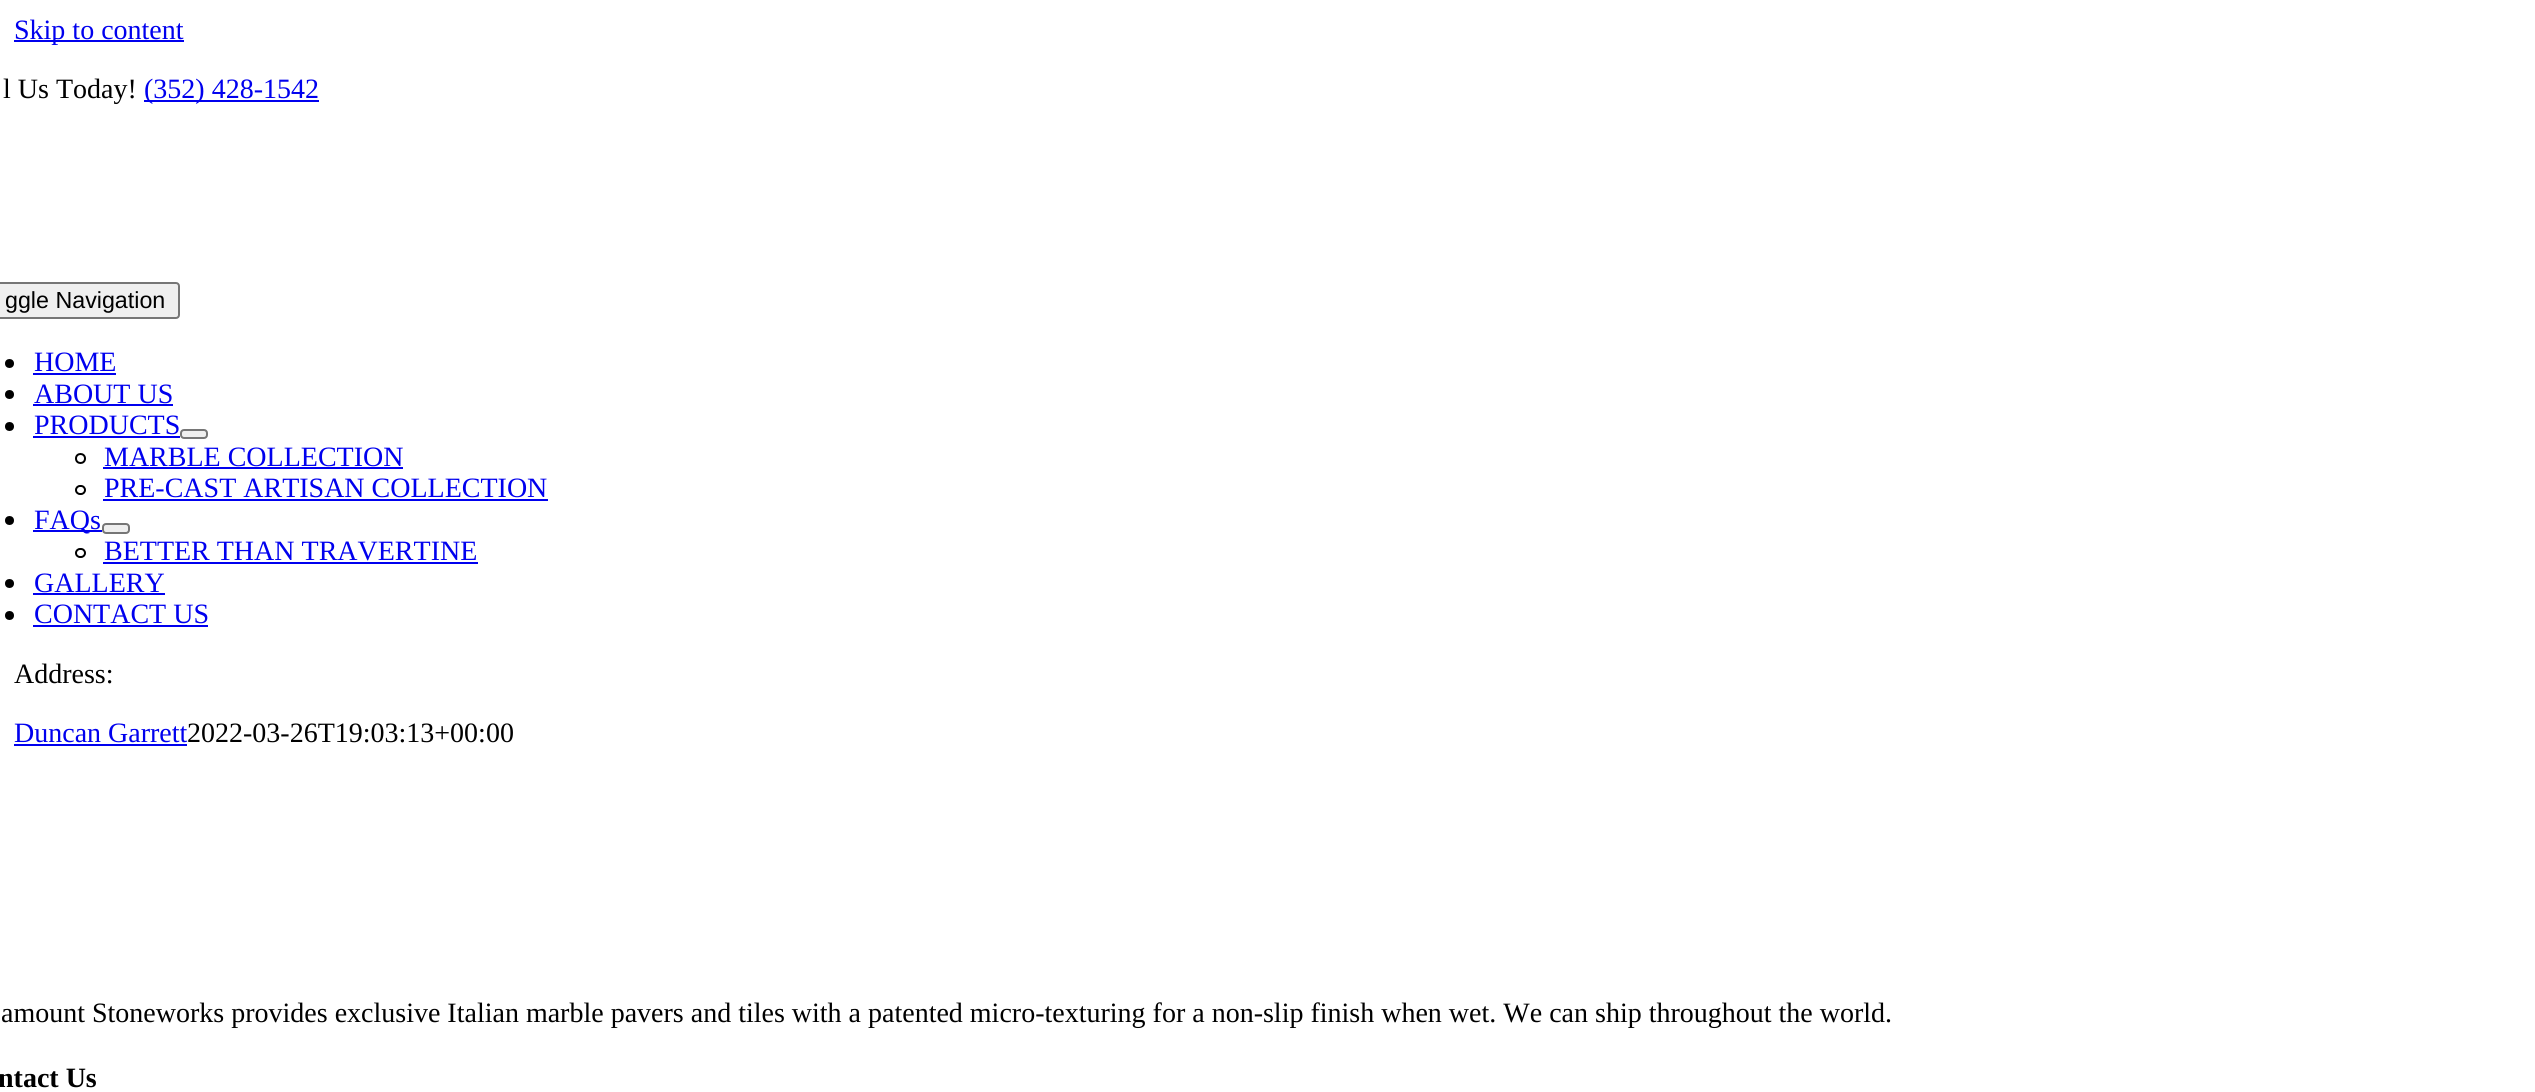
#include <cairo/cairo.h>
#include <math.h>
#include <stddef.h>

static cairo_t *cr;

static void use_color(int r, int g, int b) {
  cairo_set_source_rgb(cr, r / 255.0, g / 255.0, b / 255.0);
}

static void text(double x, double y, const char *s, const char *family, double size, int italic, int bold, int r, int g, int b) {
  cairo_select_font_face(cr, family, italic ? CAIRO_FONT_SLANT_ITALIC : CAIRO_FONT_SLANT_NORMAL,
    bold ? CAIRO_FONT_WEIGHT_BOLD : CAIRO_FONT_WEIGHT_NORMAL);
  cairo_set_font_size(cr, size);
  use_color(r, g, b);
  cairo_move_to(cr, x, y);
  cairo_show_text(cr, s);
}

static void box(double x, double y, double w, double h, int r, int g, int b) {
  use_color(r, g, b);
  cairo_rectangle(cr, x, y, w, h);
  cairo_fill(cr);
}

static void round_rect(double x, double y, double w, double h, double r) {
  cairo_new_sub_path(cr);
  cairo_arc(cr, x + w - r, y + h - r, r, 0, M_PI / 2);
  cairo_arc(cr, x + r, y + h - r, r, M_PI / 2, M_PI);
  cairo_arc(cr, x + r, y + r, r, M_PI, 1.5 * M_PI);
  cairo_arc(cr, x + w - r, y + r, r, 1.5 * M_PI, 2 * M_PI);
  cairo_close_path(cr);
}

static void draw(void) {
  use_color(255, 255, 255);
  cairo_paint(cr);
  box(14, 40, 170, 2, 0, 0, 238);
  box(144, 100, 175, 2, 0, 0, 238);
  use_color(239, 239, 239);
  round_rect(-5, 283, 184, 35, 3);
  cairo_fill_preserve(cr);
  use_color(118, 118, 118);
  cairo_stroke(cr);
  use_color(0, 0, 0);
  cairo_arc(cr, 9.5, 363.5, 4.5, 0, 2 * M_PI);
  cairo_fill(cr);
  box(33, 373, 83, 2, 0, 0, 238);
  use_color(0, 0, 0);
  cairo_arc(cr, 9.5, 394.5, 4.5, 0, 2 * M_PI);
  cairo_fill(cr);
  box(33, 404, 140, 2, 0, 0, 238);
  use_color(0, 0, 0);
  cairo_arc(cr, 9.5, 426.5, 4.5, 0, 2 * M_PI);
  cairo_fill(cr);
  box(33, 436, 147, 2, 0, 0, 238);
  use_color(239, 239, 239);
  round_rect(181, 430, 26, 8, 3);
  cairo_fill_preserve(cr);
  use_color(118, 118, 118);
  cairo_stroke(cr);
  cairo_arc(cr, 80.5, 458.5, 4.5, 0, 2 * M_PI);
  use_color(0, 0, 0);
  cairo_stroke(cr);
  box(103, 467, 300, 2, 0, 0, 238);
  round_rect(76, 486, 9, 8, 4);
  use_color(0, 0, 0);
  cairo_stroke(cr);
  box(103, 499, 445, 2, 0, 0, 238);
  use_color(0, 0, 0);
  cairo_arc(cr, 9.5, 520.5, 4.5, 0, 2 * M_PI);
  cairo_fill(cr);
  box(33, 530, 69, 2, 0, 0, 238);
  use_color(239, 239, 239);
  round_rect(103, 524, 26, 9, 3);
  cairo_fill_preserve(cr);
  use_color(118, 118, 118);
  cairo_stroke(cr);
  round_rect(76, 549, 9, 8, 4);
  use_color(0, 0, 0);
  cairo_stroke(cr);
  box(103, 562, 375, 2, 0, 0, 238);
  use_color(0, 0, 0);
  cairo_arc(cr, 9.5, 583.5, 4.5, 0, 2 * M_PI);
  cairo_fill(cr);
  box(33, 593, 132, 2, 0, 0, 238);
  use_color(0, 0, 0);
  cairo_arc(cr, 9.5, 615.5, 4.5, 0, 2 * M_PI);
  cairo_fill(cr);
  box(33, 625, 175, 2, 0, 0, 238);
  box(14, 744, 173, 2, 0, 0, 238);
  text(14, 39, "Skip to content", "Liberation Serif", 28, 0, 0, 0, 0, 238);
  text(3, 98, "l Us Today!", "Liberation Serif", 28, 0, 0, 0, 0, 0);
  text(144, 98, "(352) 428-1542", "Liberation Serif", 28, 0, 0, 0, 0, 238);
  text(5, 308, "ggle Navigation", "Liberation Sans", 23.25, 0, 0, 0, 0, 0);
  text(34, 371, "HOME", "Liberation Serif", 28, 0, 0, 0, 0, 238);
  text(34, 403, "ABOUT US", "Liberation Serif", 28, 0, 0, 0, 0, 238);
  text(34, 434, "PRODUCTS", "Liberation Serif", 28, 0, 0, 0, 0, 238);
  text(104, 466, "MARBLE COLLECTION", "Liberation Serif", 28, 0, 0, 0, 0, 238);
  text(104, 497, "PRE-CAST ARTISAN COLLECTION", "Liberation Serif", 28, 0, 0, 0, 0, 238);
  text(34, 529, "FAQs", "Liberation Serif", 28, 0, 0, 0, 0, 238);
  text(104, 560, "BETTER THAN TRAVERTINE", "Liberation Serif", 28, 0, 0, 0, 0, 238);
  text(34, 592, "GALLERY", "Liberation Serif", 28, 0, 0, 0, 0, 238);
  text(34, 623, "CONTACT US", "Liberation Serif", 28, 0, 0, 0, 0, 238);
  text(14, 683, "Address:", "Liberation Serif", 28, 0, 0, 0, 0, 0);
  text(14, 742, "Duncan Garrett", "Liberation Serif", 28, 0, 0, 0, 0, 238);
  text(187, 742, "2022-03-26T19:03:13+00:00", "Liberation Serif", 28, 0, 0, 0, 0, 0);
  text(1, 1022, "amount Stoneworks provides exclusive Italian marble pavers and tiles with a patented micro-texturing for a non-slip finish when wet. We can ship throughout the world.", "Liberation Serif", 28, 0, 0, 0, 0, 0);
  text(-2, 1087, "ntact Us", "Liberation Serif", 28, 0, 1, 0, 0, 0);
}

int main(void) {
  cairo_surface_t *surface = cairo_image_surface_create(CAIRO_FORMAT_RGB24, 2535, 1092);
  cr = cairo_create(surface);
  cairo_font_options_t *options = cairo_font_options_create();
  cairo_font_options_set_hint_metrics(options, CAIRO_HINT_METRICS_OFF);
  cairo_font_options_set_hint_style(options, CAIRO_HINT_STYLE_NONE);
  cairo_set_font_options(cr, options);
  cairo_set_miter_limit(cr, 4);
  draw();
  cairo_surface_write_to_png(surface, "out.png");
  cairo_font_options_destroy(options);
  cairo_destroy(cr);
  cairo_surface_destroy(surface);
  return 0;
}
